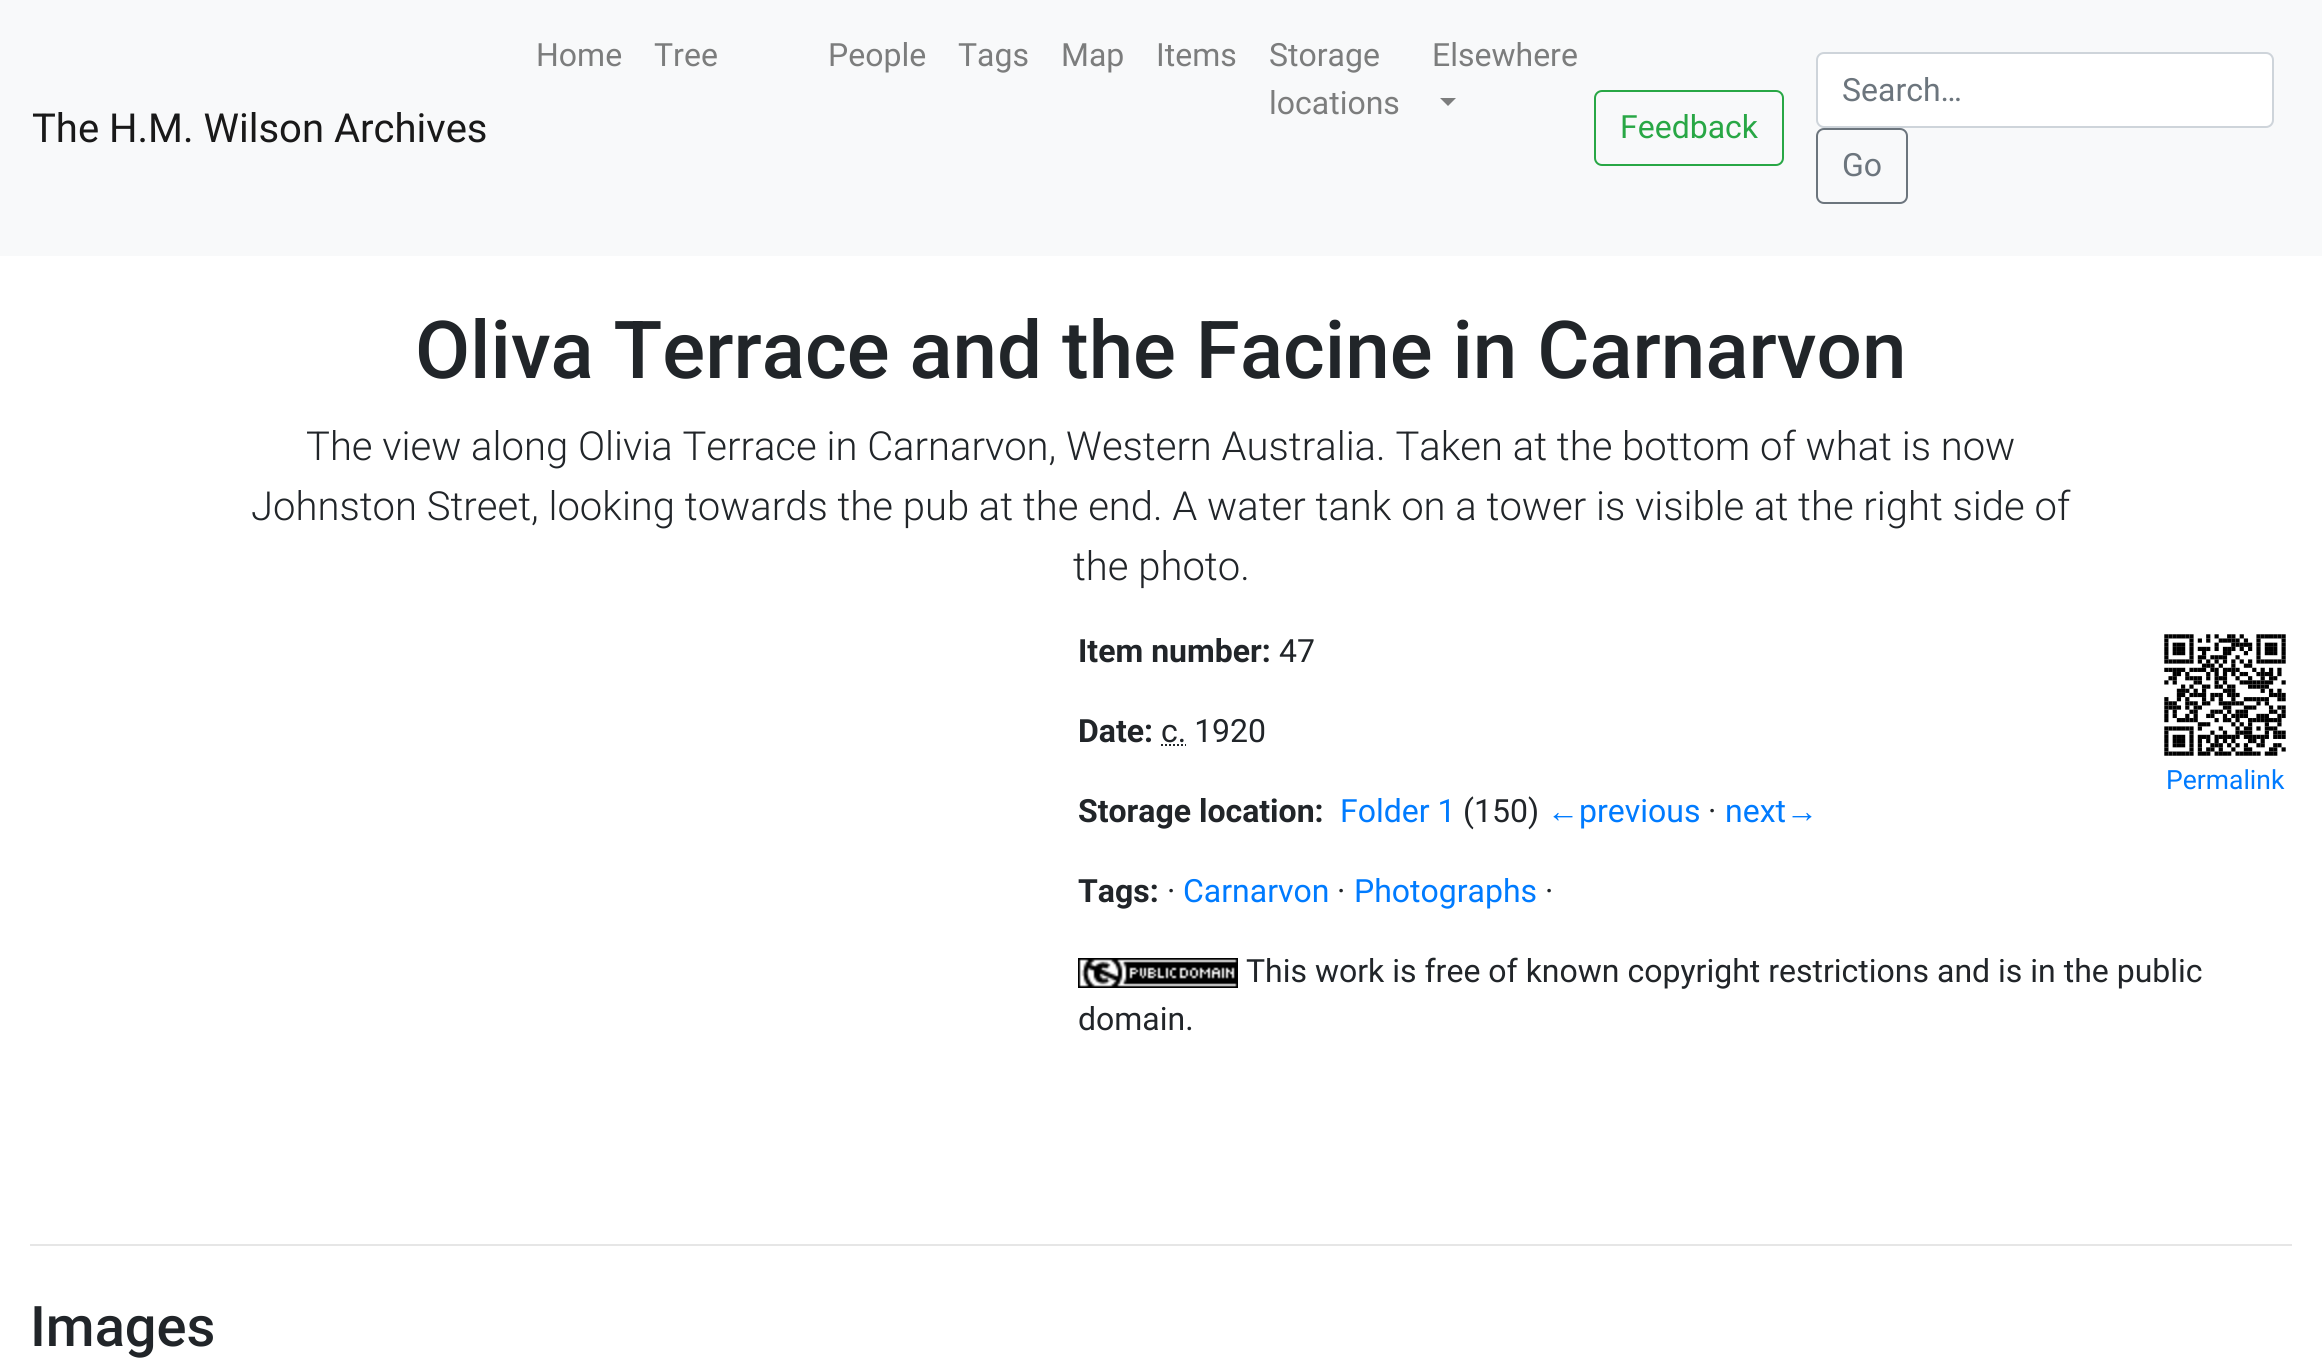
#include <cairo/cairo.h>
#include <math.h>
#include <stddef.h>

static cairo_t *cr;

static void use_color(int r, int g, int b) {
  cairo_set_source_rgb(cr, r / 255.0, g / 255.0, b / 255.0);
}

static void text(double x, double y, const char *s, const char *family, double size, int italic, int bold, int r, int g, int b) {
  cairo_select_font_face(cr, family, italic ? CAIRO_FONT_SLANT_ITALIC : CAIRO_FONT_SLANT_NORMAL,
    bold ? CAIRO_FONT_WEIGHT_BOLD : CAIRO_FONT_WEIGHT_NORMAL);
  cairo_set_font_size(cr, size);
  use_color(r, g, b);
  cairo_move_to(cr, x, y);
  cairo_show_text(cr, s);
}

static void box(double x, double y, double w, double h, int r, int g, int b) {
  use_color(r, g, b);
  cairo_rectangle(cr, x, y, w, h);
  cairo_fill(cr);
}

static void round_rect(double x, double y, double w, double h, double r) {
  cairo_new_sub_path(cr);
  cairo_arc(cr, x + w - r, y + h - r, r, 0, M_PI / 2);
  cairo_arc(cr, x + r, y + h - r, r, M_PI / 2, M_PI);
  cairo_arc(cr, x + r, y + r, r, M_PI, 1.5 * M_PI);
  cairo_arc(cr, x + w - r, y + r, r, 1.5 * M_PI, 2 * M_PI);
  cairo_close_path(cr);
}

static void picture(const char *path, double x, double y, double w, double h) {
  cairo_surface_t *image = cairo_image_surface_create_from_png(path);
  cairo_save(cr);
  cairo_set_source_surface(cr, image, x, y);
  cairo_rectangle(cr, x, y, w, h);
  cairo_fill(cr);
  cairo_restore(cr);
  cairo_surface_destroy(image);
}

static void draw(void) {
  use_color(255, 255, 255);
  cairo_paint(cr);
  box(0, 0, 2322, 256, 248, 249, 250);
  use_color(124, 125, 125);
  cairo_new_path(cr);
  cairo_move_to(cr, 1440, 98);
  cairo_line_to(cr, 1456, 98);
  cairo_line_to(cr, 1448, 106);
  cairo_close_path(cr);
  cairo_fill(cr);
  round_rect(1595, 91, 188, 74, 7);
  use_color(40, 167, 69);
  cairo_stroke(cr);
  use_color(255, 255, 255);
  round_rect(1817, 53, 456, 74, 7);
  cairo_fill_preserve(cr);
  use_color(206, 212, 218);
  cairo_stroke(cr);
  round_rect(1817, 129, 90, 74, 7);
  use_color(108, 117, 125);
  cairo_stroke(cr);
  cairo_new_path(cr);
  cairo_move_to(cr, 1161, 745);
  cairo_line_to(cr, 1186, 745);
  use_color(33, 37, 41);
  cairo_set_dash(cr, (double[]){2, 2}, 2, 0);
  cairo_stroke(cr);
  picture("img_01.png", 2164, 634, 122, 122);
  picture("img_02.png", 1078, 958, 160, 30);
  box(30, 1244, 2262, 2, 230, 230, 230);
  text(32, 142, "The H.M. Wilson Archives", "Roboto", 40, 0, 0, 25, 25, 25);
  text(536, 66, "Home", "Roboto", 32, 0, 0, 124, 125, 125);
  text(654, 66, "Tree", "Roboto", 32, 0, 0, 124, 125, 125);
  text(828, 66, "People", "Roboto", 32, 0, 0, 124, 125, 125);
  text(958, 66, "Tags", "Roboto", 32, 0, 0, 124, 125, 125);
  text(1061, 66, "Map", "Roboto", 32, 0, 0, 124, 125, 125);
  text(1156, 66, "Items", "Roboto", 32, 0, 0, 124, 125, 125);
  text(1269, 66, "Storage", "Roboto", 32, 0, 0, 124, 125, 125);
  text(1269, 114, "locations", "Roboto", 32, 0, 0, 124, 125, 125);
  text(1432, 66, "Elsewhere", "Roboto", 32, 0, 0, 124, 125, 125);
  text(1620, 138, "Feedback", "Roboto", 32, 0, 0, 40, 167, 69);
  text(1842, 101, "Search…", "Roboto", 32, 0, 0, 108, 117, 125);
  text(1842, 176, "Go", "Roboto", 32, 0, 0, 108, 117, 125);
  text(415, 378, "Oliva Terrace and the Facine in Carnarvon", "Roboto Medium", 80, 0, 0, 33, 37, 41);
  text(306, 460, "The view along Olivia Terrace in Carnarvon, Western Australia. Taken at the bottom of what is now", "Roboto Light", 40, 0, 0, 33, 37, 41);
  text(251, 520, "Johnston Street, looking towards the pub at the end. A water tank on a tower is visible at the right side of", "Roboto Light", 40, 0, 0, 33, 37, 41);
  text(1073, 580, "the photo.", "Roboto Light", 40, 0, 0, 33, 37, 41);
  text(1078, 662, "Item number:", "Roboto", 32, 0, 1, 33, 37, 41);
  text(1279, 662, "47", "Roboto", 32, 0, 0, 33, 37, 41);
  text(1078, 742, "Date:", "Roboto", 32, 0, 1, 33, 37, 41);
  text(1161, 742, "c. 1920", "Roboto", 32, 0, 0, 33, 37, 41);
  text(2166, 789, "Permalink", "Roboto", 26.5, 0, 0, 0, 123, 255);
  text(1078, 822, "Storage location:", "Roboto", 32, 0, 1, 33, 37, 41);
  text(1340, 822, "Folder 1", "Roboto", 32, 0, 0, 0, 123, 255);
  text(1463, 822, "(150)", "Roboto", 32, 0, 0, 33, 37, 41);
  text(1579, 822, "previous", "Roboto", 32, 0, 0, 0, 123, 255);
  text(1708, 822, "·", "Roboto", 32, 0, 0, 33, 37, 41);
  text(1725, 822, "next", "Roboto", 32, 0, 0, 0, 123, 255);
  text(1547, 822, "←", "Liberation Sans", 32, 0, 0, 0, 123, 255);
  text(1786, 822, "→", "Liberation Sans", 32, 0, 0, 0, 123, 255);
  text(1078, 902, "Tags:", "Roboto", 32, 0, 1, 33, 37, 41);
  text(1167, 902, "·", "Roboto", 32, 0, 0, 33, 37, 41);
  text(1183, 902, "Carnarvon", "Roboto", 32, 0, 0, 0, 123, 255);
  text(1337, 902, "·", "Roboto", 32, 0, 0, 33, 37, 41);
  text(1354, 902, "Photographs", "Roboto", 32, 0, 0, 0, 123, 255);
  text(1545, 902, "·", "Roboto", 32, 0, 0, 33, 37, 41);
  text(1246, 982, "This work is free of known copyright restrictions and is in the public", "Roboto", 32, 0, 0, 33, 37, 41);
  text(1078, 1030, "domain.", "Roboto", 32, 0, 0, 33, 37, 41);
  text(30, 1346, "Images", "Roboto Medium", 56, 0, 0, 33, 37, 41);
}

int main(void) {
  cairo_surface_t *surface = cairo_image_surface_create(CAIRO_FORMAT_RGB24, 2322, 1372);
  cr = cairo_create(surface);
  cairo_font_options_t *options = cairo_font_options_create();
  cairo_font_options_set_hint_metrics(options, CAIRO_HINT_METRICS_OFF);
  cairo_font_options_set_hint_style(options, CAIRO_HINT_STYLE_NONE);
  cairo_set_font_options(cr, options);
  cairo_set_miter_limit(cr, 4);
  draw();
  cairo_surface_write_to_png(surface, "out.png");
  cairo_font_options_destroy(options);
  cairo_destroy(cr);
  cairo_surface_destroy(surface);
  return 0;
}
